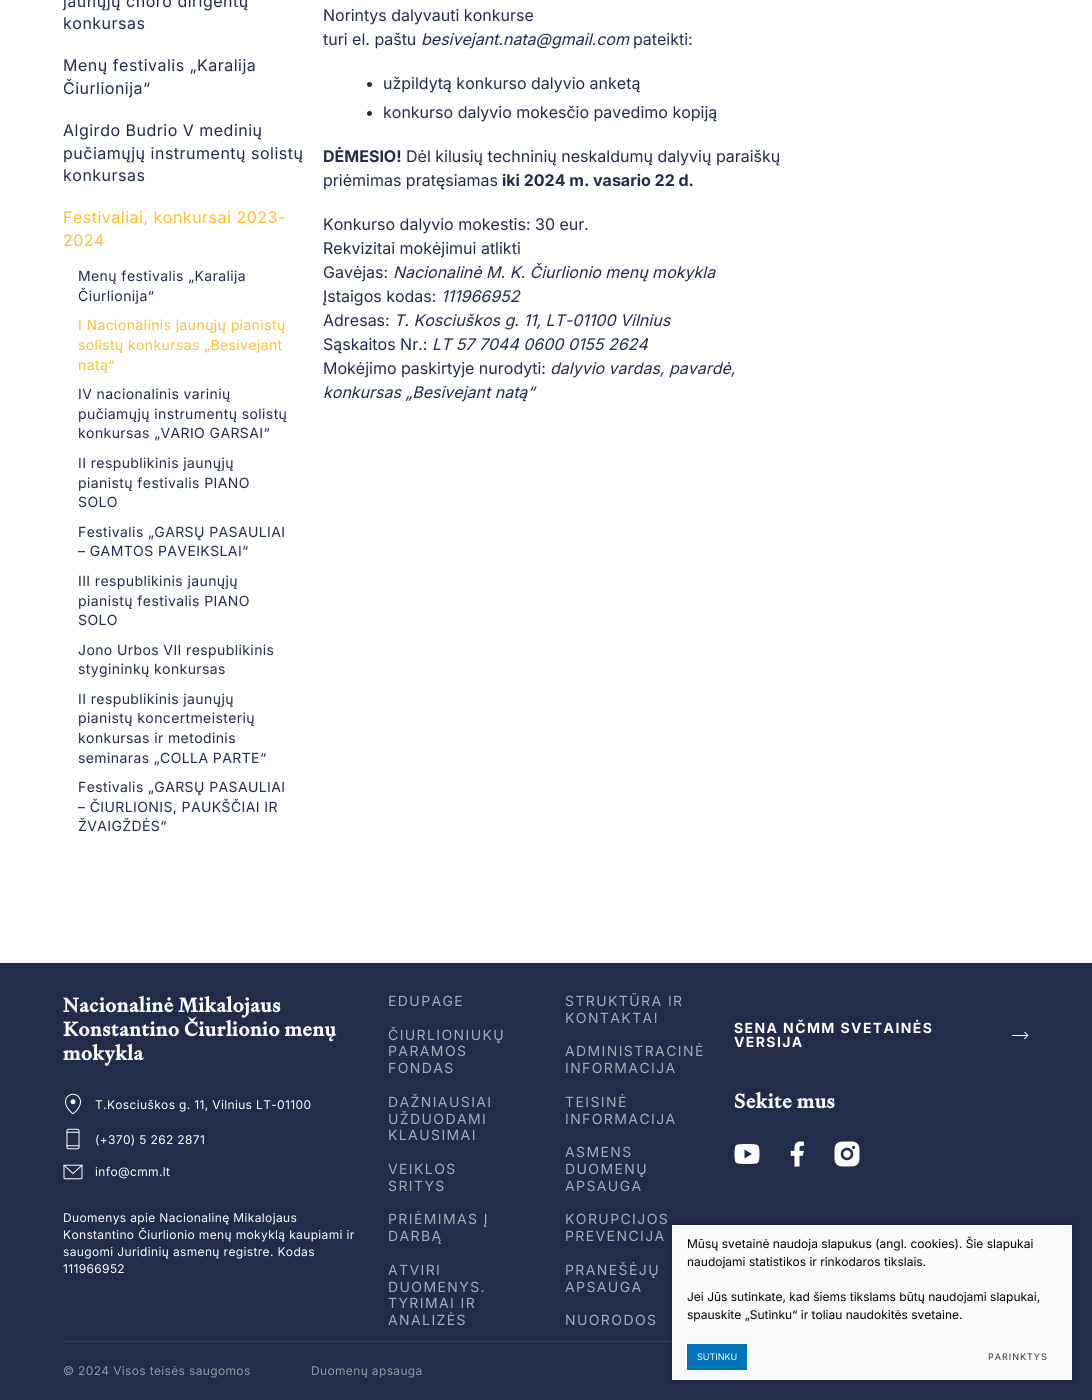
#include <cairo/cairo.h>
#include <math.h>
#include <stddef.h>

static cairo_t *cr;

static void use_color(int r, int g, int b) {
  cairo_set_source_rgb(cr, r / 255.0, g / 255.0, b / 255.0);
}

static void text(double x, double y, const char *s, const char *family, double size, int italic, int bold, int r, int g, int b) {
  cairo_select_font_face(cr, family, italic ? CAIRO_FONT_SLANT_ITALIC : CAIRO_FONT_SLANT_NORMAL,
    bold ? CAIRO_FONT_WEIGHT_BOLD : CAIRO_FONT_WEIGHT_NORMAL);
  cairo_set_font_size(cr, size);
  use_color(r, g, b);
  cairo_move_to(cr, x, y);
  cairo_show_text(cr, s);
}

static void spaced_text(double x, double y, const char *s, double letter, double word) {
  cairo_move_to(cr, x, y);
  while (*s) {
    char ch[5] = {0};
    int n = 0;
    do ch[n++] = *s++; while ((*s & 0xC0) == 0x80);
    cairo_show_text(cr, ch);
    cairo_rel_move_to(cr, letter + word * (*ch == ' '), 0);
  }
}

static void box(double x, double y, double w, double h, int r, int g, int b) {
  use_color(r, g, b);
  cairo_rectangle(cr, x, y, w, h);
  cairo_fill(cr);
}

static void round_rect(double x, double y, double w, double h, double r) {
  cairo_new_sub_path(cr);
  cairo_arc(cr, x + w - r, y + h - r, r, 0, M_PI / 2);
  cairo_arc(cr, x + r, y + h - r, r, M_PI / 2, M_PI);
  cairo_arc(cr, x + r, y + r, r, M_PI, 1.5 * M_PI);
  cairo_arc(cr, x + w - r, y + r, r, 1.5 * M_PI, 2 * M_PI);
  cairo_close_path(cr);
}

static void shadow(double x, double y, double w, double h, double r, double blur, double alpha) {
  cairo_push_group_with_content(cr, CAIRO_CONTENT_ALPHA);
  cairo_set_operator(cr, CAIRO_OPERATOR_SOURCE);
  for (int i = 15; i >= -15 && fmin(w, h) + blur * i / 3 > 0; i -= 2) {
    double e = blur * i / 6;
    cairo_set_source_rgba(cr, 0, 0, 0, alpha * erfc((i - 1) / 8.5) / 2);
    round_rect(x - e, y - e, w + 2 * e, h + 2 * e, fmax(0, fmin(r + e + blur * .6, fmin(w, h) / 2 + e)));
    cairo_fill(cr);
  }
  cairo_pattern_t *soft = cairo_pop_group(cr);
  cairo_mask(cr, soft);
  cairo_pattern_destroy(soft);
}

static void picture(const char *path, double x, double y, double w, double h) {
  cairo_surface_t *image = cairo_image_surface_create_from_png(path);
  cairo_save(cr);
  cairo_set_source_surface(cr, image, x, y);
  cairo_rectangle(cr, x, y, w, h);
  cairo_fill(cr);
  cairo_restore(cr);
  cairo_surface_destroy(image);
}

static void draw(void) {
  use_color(255, 255, 255);
  cairo_paint(cr);
  use_color(33, 44, 75);
  cairo_arc(cr, 369.5, 84.5, 2.5, 0, 2 * M_PI);
  cairo_fill(cr);
  cairo_arc(cr, 369.5, 113.5, 2.5, 0, 2 * M_PI);
  cairo_fill(cr);
  box(0, 963, 1092, 437, 33, 44, 75);
  picture("img_01.png", 65, 1093, 16, 22);
  picture("img_02.png", 66, 1128, 14, 22);
  picture("img_03.png", 63, 1164, 20, 16);
  picture("img_04.png", 1012, 1031, 17, 9);
  picture("img_05.png", 734, 1144, 26, 20);
  picture("img_06.png", 790, 1141, 14, 26);
  picture("img_07.png", 834, 1141, 26, 26);
  box(63, 1341, 609, 1, 53, 63, 91);
  use_color(0, 0, 0);
  shadow(672, 1225, 400, 155, 0, 3.5, 0.25);
  box(672, 1225, 400, 155, 250, 250, 250);
  box(687, 1344, 60, 26, 0, 115, 187);
  cairo_select_font_face(cr, "Inter", CAIRO_FONT_SLANT_NORMAL, CAIRO_FONT_WEIGHT_NORMAL);
  cairo_set_font_size(cr, 16);
  use_color(33, 44, 75);
  spaced_text(63, 7, "jaunųjų choro dirigentų", 0.5, 0);
  spaced_text(63, 29, "konkursas", 0.5, 0);
  spaced_text(63, 71, "Menų festivalis „Karalija", 0.5, 0);
  spaced_text(63, 94, "Čiurlionija“", 0.5, 0);
  spaced_text(63, 136, "Algirdo Budrio V medinių", 0.5, 0);
  spaced_text(63, 159, "pučiamųjų instrumentų solistų", 0.5, 0);
  spaced_text(63, 181, "konkursas", 0.5, 0);
  use_color(253, 189, 46);
  spaced_text(63, 223, "Festivaliai, konkursai 2023-", 0.5, 0);
  spaced_text(63, 246, "2024", 0.5, 0);
  cairo_set_font_size(cr, 14);
  use_color(33, 44, 75);
  spaced_text(78, 281, "Menų festivalis „Karalija", 0.4, 0);
  spaced_text(78, 301, "Čiurlionija“", 0.4, 0);
  use_color(253, 189, 46);
  spaced_text(78, 330, "I Nacionalinis jaunųjų pianistų", 0.4, 0);
  spaced_text(78, 350, "solistų konkursas „Besivejant", 0.4, 0);
  spaced_text(78, 370, "natą“", 0.4, 0);
  use_color(33, 44, 75);
  spaced_text(78, 399, "IV nacionalinis varinių", 0.4, 0);
  spaced_text(78, 419, "pučiamųjų instrumentų solistų", 0.4, 0);
  spaced_text(78, 438, "konkursas „VARIO GARSAI“", 0.4, 0);
  spaced_text(78, 468, "II respublikinis jaunųjų", 0.4, 0);
  spaced_text(78, 488, "pianistų festivalis PIANO", 0.4, 0);
  spaced_text(78, 507, "SOLO", 0.4, 0);
  spaced_text(78, 537, "Festivalis „GARSŲ PASAULIAI", 0.4, 0);
  spaced_text(78, 556, "– GAMTOS PAVEIKSLAI“", 0.4, 0);
  spaced_text(78, 586, "III respublikinis jaunųjų", 0.4, 0);
  spaced_text(78, 606, "pianistų festivalis PIANO", 0.4, 0);
  spaced_text(78, 625, "SOLO", 0.4, 0);
  spaced_text(78, 655, "Jono Urbos VII respublikinis", 0.4, 0);
  spaced_text(78, 674, "stygininkų konkursas", 0.4, 0);
  spaced_text(78, 704, "II respublikinis jaunųjų", 0.4, 0);
  spaced_text(78, 723, "pianistų koncertmeisterių", 0.4, 0);
  spaced_text(78, 743, "konkursas ir metodinis", 0.4, 0);
  spaced_text(78, 763, "seminaras „COLLA PARTE“", 0.4, 0);
  spaced_text(78, 792, "Festivalis „GARSŲ PASAULIAI", 0.4, 0);
  spaced_text(78, 812, "– ČIURLIONIS, PAUKŠČIAI IR", 0.4, 0);
  spaced_text(78, 831, "ŽVAIGŽDĖS“", 0.4, 0);
  text(323, 21, "Norintys dalyvauti konkurse", "Inter", 16, 0, 0, 33, 44, 75);
  text(323, 45, "turi el. paštu", "Inter", 16, 0, 0, 33, 44, 75);
  text(421, 45, "besivejant.nata@gmail.com", "Inter", 16, 1, 0, 33, 44, 75);
  text(633, 45, "pateikti:", "Inter", 16, 0, 0, 33, 44, 75);
  text(383, 89, "užpildytą konkurso dalyvio anketą", "Inter", 16, 0, 0, 33, 44, 75);
  text(383, 118, "konkurso dalyvio mokesčio pavedimo kopiją", "Inter", 16, 0, 0, 33, 44, 75);
  text(323, 162, "DĖMESIO!", "Inter", 16, 0, 1, 33, 44, 75);
  text(406, 162, "Dėl kilusių techninių neskaldumų dalyvių paraiškų", "Inter", 16, 0, 0, 33, 44, 75);
  text(323, 186, "priėmimas pratęsiamas", "Inter", 16, 0, 0, 33, 44, 75);
  text(502, 186, "iki 2024 m. vasario 22 d.", "Inter", 16, 0, 1, 33, 44, 75);
  text(323, 230, "Konkurso dalyvio mokestis: 30 eur.", "Inter", 16, 0, 0, 33, 44, 75);
  text(323, 254, "Rekvizitai mokėjimui atlikti", "Inter", 16, 0, 0, 33, 44, 75);
  text(323, 278, "Gavėjas:", "Inter", 16, 0, 0, 33, 44, 75);
  text(393, 278, "Nacionalinė M. K. Čiurlionio menų mokykla", "Inter", 16, 1, 0, 33, 44, 75);
  text(323, 302, "Įstaigos kodas:", "Inter", 16, 0, 0, 33, 44, 75);
  text(441, 302, "111966952", "Inter", 16, 1, 0, 33, 44, 75);
  text(323, 326, "Adresas:", "Inter", 16, 0, 0, 33, 44, 75);
  text(394, 326, "T. Kosciuškos g. 11, LT-01100 Vilnius", "Inter", 16, 1, 0, 33, 44, 75);
  text(323, 350, "Sąskaitos Nr.:", "Inter", 16, 0, 0, 33, 44, 75);
  text(432, 350, "LT 57 7044 0600 0155 2624", "Inter", 16, 1, 0, 33, 44, 75);
  text(323, 374, "Mokėjimo paskirtyje nurodyti:", "Inter", 16, 0, 0, 33, 44, 75);
  text(550, 374, "dalyvio vardas, pavardė,", "Inter", 16, 1, 0, 33, 44, 75);
  text(323, 398, "konkursas „Besivejant natą“", "Inter", 16, 1, 0, 33, 44, 75);
  cairo_select_font_face(cr, "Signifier", CAIRO_FONT_SLANT_NORMAL, CAIRO_FONT_WEIGHT_BOLD);
  cairo_set_font_size(cr, 20);
  use_color(253, 253, 253);
  spaced_text(63, 1012, "Nacionalinė Mikalojaus", 0.6, 0);
  spaced_text(63, 1036, "Konstantino Čiurlionio menų", 0.6, 0);
  spaced_text(63, 1060, "mokykla", 0.6, 0);
  cairo_select_font_face(cr, "Inter", CAIRO_FONT_SLANT_NORMAL, CAIRO_FONT_WEIGHT_NORMAL);
  cairo_set_font_size(cr, 12);
  spaced_text(95, 1109, "T.Kosciuškos g. 11, Vilnius LT-01100", 0.35, 0);
  spaced_text(95, 1144, "(+370) 5 262 2871", 0.35, 0);
  spaced_text(95, 1176, "info@cmm.lt", 0.35, 0);
  spaced_text(63, 1222, "Duomenys apie Nacionalinę Mikalojaus", 0.35, 0);
  spaced_text(63, 1239, "Konstantino Čiurlionio menų mokyklą kaupiami ir", 0.35, 0);
  spaced_text(63, 1256, "saugomi Juridinių asmenų registre. Kodas", 0.35, 0);
  spaced_text(63, 1273, "111966952", 0.35, 0);
  cairo_set_font_size(cr, 14);
  use_color(166, 171, 183);
  spaced_text(388, 1006, "EDUPAGE", 1.4, 0);
  spaced_text(388, 1040, "ČIURLIONIUKŲ", 1.4, 0);
  spaced_text(388, 1056, "PARAMOS", 1.4, 0);
  spaced_text(388, 1073, "FONDAS", 1.4, 0);
  spaced_text(388, 1107, "DAŽNIAUSIAI", 1.4, 0);
  spaced_text(388, 1124, "UŽDUODAMI", 1.4, 0);
  spaced_text(388, 1140, "KLAUSIMAI", 1.4, 0);
  spaced_text(388, 1174, "VEIKLOS", 1.4, 0);
  spaced_text(388, 1191, "SRITYS", 1.4, 0);
  spaced_text(388, 1224, "PRIĖMIMAS Į", 1.4, 0);
  spaced_text(388, 1241, "DARBĄ", 1.4, 0);
  spaced_text(388, 1275, "ATVIRI", 1.4, 0);
  spaced_text(388, 1292, "DUOMENYS.", 1.4, 0);
  spaced_text(388, 1308, "TYRIMAI IR", 1.4, 0);
  spaced_text(388, 1325, "ANALIZĖS", 1.4, 0);
  spaced_text(565, 1006, "STRUKTŪRA IR", 1.4, 0);
  spaced_text(565, 1023, "KONTAKTAI", 1.4, 0);
  spaced_text(565, 1056, "ADMINISTRACINĖ", 1.4, 0);
  spaced_text(565, 1073, "INFORMACIJA", 1.4, 0);
  spaced_text(565, 1107, "TEISINĖ", 1.4, 0);
  spaced_text(565, 1124, "INFORMACIJA", 1.4, 0);
  spaced_text(565, 1157, "ASMENS", 1.4, 0);
  spaced_text(565, 1174, "DUOMENŲ", 1.4, 0);
  spaced_text(565, 1191, "APSAUGA", 1.4, 0);
  spaced_text(565, 1224, "KORUPCIJOS", 1.4, 0);
  spaced_text(565, 1241, "PREVENCIJA", 1.4, 0);
  spaced_text(565, 1275, "PRANEŠĖJŲ", 1.4, 0);
  spaced_text(565, 1292, "APSAUGA", 1.4, 0);
  spaced_text(565, 1325, "NUORODOS", 1.4, 0);
  cairo_select_font_face(cr, "Inter", CAIRO_FONT_SLANT_NORMAL, CAIRO_FONT_WEIGHT_BOLD);
  use_color(253, 253, 253);
  spaced_text(734, 1033, "SENA NČMM SVETAINĖS", 1.4, 0);
  spaced_text(734, 1047, "VERSIJA", 1.4, 0);
  cairo_select_font_face(cr, "Signifier", CAIRO_FONT_SLANT_NORMAL, CAIRO_FONT_WEIGHT_BOLD);
  cairo_set_font_size(cr, 20);
  spaced_text(734, 1108, "Sekite mus", 0.6, 0);
  cairo_select_font_face(cr, "Inter", CAIRO_FONT_SLANT_NORMAL, CAIRO_FONT_WEIGHT_NORMAL);
  cairo_set_font_size(cr, 12);
  use_color(146, 152, 167);
  spaced_text(63, 1375, "© 2024 Visos teisės saugomos", 0.35, 0);
  spaced_text(311, 1375, "Duomenų apsauga", 0.35, 0);
  text(687, 1248, "Mūsų svetainė naudoja slapukus (angl. cookies). Šie slapukai", "Inter", 12, 0, 0, 0, 0, 0);
  text(687, 1266, "naudojami statistikos ir rinkodaros tikslais.", "Inter", 12, 0, 0, 0, 0, 0);
  text(687, 1301, "Jei Jūs sutinkate, kad šiems tikslams būtų naudojami slapukai,", "Inter", 12, 0, 0, 0, 0, 0);
  text(687, 1319, "spauskite „Sutinku“ ir toliau naudokitės svetaine.", "Inter", 12, 0, 0, 0, 0, 0);
  text(697, 1360, "SUTINKU", "Inter", 9, 0, 0, 253, 253, 253);
  use_color(38, 50, 56);
  spaced_text(988, 1360, "PARINKTYS", 1, 0);
}

int main(void) {
  cairo_surface_t *surface = cairo_image_surface_create(CAIRO_FORMAT_RGB24, 1092, 1400);
  cr = cairo_create(surface);
  cairo_font_options_t *options = cairo_font_options_create();
  cairo_font_options_set_hint_metrics(options, CAIRO_HINT_METRICS_OFF);
  cairo_font_options_set_hint_style(options, CAIRO_HINT_STYLE_NONE);
  cairo_set_font_options(cr, options);
  cairo_set_miter_limit(cr, 4);
  draw();
  cairo_surface_write_to_png(surface, "out.png");
  cairo_font_options_destroy(options);
  cairo_destroy(cr);
  cairo_surface_destroy(surface);
  return 0;
}
